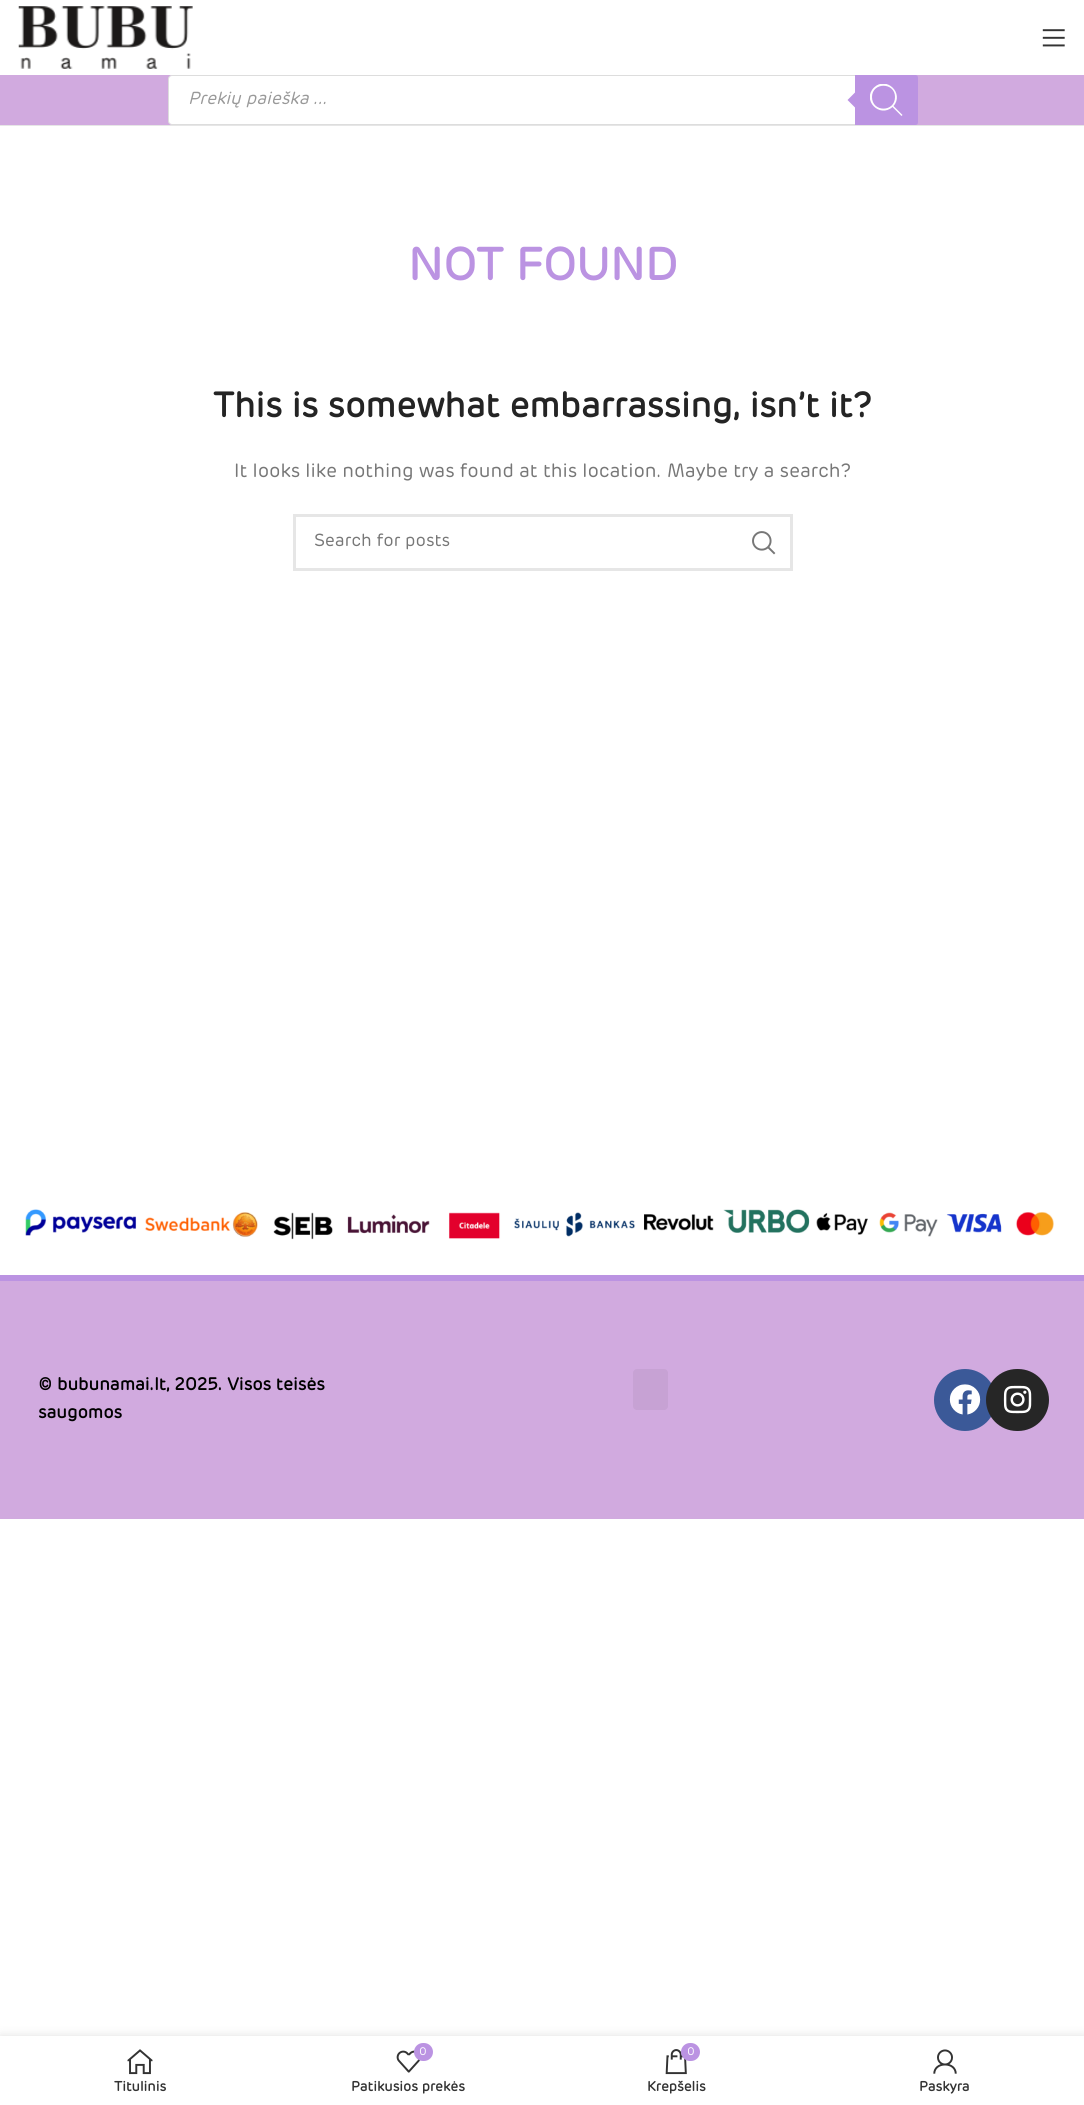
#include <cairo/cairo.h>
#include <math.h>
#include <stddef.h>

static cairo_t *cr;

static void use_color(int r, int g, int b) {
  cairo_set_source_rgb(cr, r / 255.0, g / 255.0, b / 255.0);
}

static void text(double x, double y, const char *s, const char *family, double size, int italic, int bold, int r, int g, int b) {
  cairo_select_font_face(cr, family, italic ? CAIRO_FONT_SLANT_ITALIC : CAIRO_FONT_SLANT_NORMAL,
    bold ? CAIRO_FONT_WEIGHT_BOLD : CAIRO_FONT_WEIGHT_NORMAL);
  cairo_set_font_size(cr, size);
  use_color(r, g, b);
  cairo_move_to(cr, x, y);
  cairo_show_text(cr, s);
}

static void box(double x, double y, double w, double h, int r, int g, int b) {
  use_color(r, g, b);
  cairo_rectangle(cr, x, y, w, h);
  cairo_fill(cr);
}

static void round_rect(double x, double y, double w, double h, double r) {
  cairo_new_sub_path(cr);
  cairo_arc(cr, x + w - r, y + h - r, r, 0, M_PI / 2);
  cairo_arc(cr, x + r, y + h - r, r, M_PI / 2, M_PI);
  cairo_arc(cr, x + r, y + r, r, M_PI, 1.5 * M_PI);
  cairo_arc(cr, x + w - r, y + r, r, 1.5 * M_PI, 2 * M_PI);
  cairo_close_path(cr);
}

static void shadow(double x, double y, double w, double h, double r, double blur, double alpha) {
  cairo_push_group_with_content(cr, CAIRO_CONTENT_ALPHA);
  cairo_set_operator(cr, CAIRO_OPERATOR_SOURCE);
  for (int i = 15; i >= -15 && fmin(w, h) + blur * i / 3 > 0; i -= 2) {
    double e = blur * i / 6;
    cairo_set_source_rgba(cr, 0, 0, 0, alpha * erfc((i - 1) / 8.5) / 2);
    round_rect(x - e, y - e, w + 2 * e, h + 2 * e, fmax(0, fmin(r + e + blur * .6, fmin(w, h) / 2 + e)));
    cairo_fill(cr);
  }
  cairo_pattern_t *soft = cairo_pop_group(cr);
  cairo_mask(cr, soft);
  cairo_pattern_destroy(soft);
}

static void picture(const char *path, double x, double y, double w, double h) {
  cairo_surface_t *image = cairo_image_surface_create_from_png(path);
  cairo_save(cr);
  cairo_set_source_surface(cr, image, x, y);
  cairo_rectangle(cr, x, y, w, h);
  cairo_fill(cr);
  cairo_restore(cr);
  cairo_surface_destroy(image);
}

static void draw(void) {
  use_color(255, 255, 255);
  cairo_paint(cr);
  picture("img_01.png", 18, 6, 175, 63);
  picture("img_02.png", 1042, 29, 23, 18);
  box(0, 75, 1084, 50, 209, 170, 223);
  box(0, 125, 1084, 1, 230, 230, 230);
  use_color(255, 255, 255);
  round_rect(168.5, 75.5, 749, 49, 3.5);
  cairo_fill_preserve(cr);
  use_color(221, 221, 221);
  cairo_set_line_width(cr, 1);
  cairo_stroke(cr);
  use_color(187, 147, 226);
  cairo_new_path(cr);
  cairo_move_to(cr, 855, 75);
  cairo_line_to(cr, 915.5, 75);
  cairo_curve_to(cr, 917, 75, 918, 76, 918, 77.5);
  cairo_line_to(cr, 918, 122.5);
  cairo_curve_to(cr, 918, 124, 917, 125, 915.5, 125);
  cairo_line_to(cr, 855, 125);
  cairo_close_path(cr);
  cairo_fill(cr);
  cairo_new_path(cr);
  cairo_move_to(cr, 857.5, 90);
  cairo_line_to(cr, 857.5, 110);
  cairo_line_to(cr, 847.5, 100);
  cairo_close_path(cr);
  cairo_fill(cr);
  cairo_save(cr);
  cairo_rectangle(cr, 870, 84, 33, 32);
  cairo_clip(cr);
  use_color(255, 255, 255);
  cairo_new_path(cr);
  cairo_move_to(cr, 902.5, 115);
  cairo_line_to(cr, 893.5, 106);
  cairo_curve_to(cr, 904.5, 93.5, 886.5, 75.5, 874, 87.5);
  cairo_curve_to(cr, 861.5, 100, 879.5, 118.5, 892.5, 107);
  cairo_line_to(cr, 901.5, 116);
  cairo_close_path(cr);
  cairo_move_to(cr, 872, 97);
  cairo_curve_to(cr, 872, 82, 895, 82, 895, 97);
  cairo_curve_to(cr, 895, 112.5, 872, 112.5, 872, 97);
  cairo_close_path(cr);
  cairo_fill(cr);
  cairo_restore(cr);
  cairo_rectangle(cr, 294.5, 515.5, 497, 54);
  use_color(230, 230, 230);
  cairo_set_line_width(cr, 3);
  cairo_stroke(cr);
  picture("img_03.png", 752, 531, 24, 24);
  picture("img_04.png", 25, 1209, 1029, 31);
  box(0, 1281, 1084, 238, 209, 170, 223);
  box(0, 1275, 1084, 6, 187, 147, 226);
  use_color(199, 162, 212);
  round_rect(633, 1369, 35, 41, 4);
  cairo_fill(cr);
  use_color(59, 89, 152);
  cairo_arc(cr, 965, 1400, 31, 0, 2 * M_PI);
  cairo_fill(cr);
  picture("img_05.png", 949, 1384, 32, 31);
  use_color(38, 38, 38);
  round_rect(986, 1369, 63, 62, 31);
  cairo_fill(cr);
  picture("img_06.png", 1003, 1385, 29, 29);
  use_color(0, 0, 0);
  shadow(0, 2036, 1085, 69, 0, 5.5, 0.12);
  box(0, 2036, 1084, 69, 255, 255, 255);
  picture("img_07.png", 127, 2049, 26, 26);
  picture("img_08.png", 396, 2050, 25, 23);
  use_color(187, 147, 226);
  round_rect(414, 2043, 19, 18, 9);
  cairo_fill(cr);
  picture("img_09.png", 665, 2049, 22, 26);
  round_rect(681, 2043, 19, 18, 9);
  cairo_fill(cr);
  picture("img_10.png", 933, 2049, 24, 25);
  text(188, 104, "Prekių paieška ...", "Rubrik", 17.5, 1, 0, 153, 153, 153);
  text(408, 280, "NOT FOUND", "Rubrik", 45.5, 0, 1, 187, 147, 226);
  text(213, 417, "This is somewhat embarrassing, isn’t it?", "Rubrik", 35, 0, 1, 36, 36, 36);
  text(234, 477, "It looks like nothing was found at this location. Maybe try a search?", "Rubrik", 19.25, 0, 0, 119, 119, 119);
  text(314, 546, "Search for posts", "Rubrik", 17.5, 0, 0, 119, 119, 119);
  text(38, 1390, "© bubunamai.lt, 2025. Visos teisės", "Rubrik", 17.5, 0, 1, 0, 0, 0);
  text(38, 1418, "saugomos", "Rubrik", 17.5, 0, 1, 0, 0, 0);
  text(114, 2091, "Titulinis", "Rubrik", 13.75, 0, 1, 51, 51, 51);
  text(419, 2055, "0", "Rubrik", 11, 0, 0, 255, 255, 255);
  text(351, 2091, "Patikusios prekės", "Rubrik", 13.75, 0, 1, 51, 51, 51);
  text(687, 2055, "0", "Rubrik", 11, 0, 0, 255, 255, 255);
  text(647, 2091, "Krepšelis", "Rubrik", 13.75, 0, 1, 51, 51, 51);
  text(919, 2091, "Paskyra", "Rubrik", 13.75, 0, 1, 51, 51, 51);
}

int main(void) {
  cairo_surface_t *surface = cairo_image_surface_create(CAIRO_FORMAT_RGB24, 1084, 2105);
  cr = cairo_create(surface);
  cairo_font_options_t *options = cairo_font_options_create();
  cairo_font_options_set_hint_metrics(options, CAIRO_HINT_METRICS_OFF);
  cairo_font_options_set_hint_style(options, CAIRO_HINT_STYLE_NONE);
  cairo_set_font_options(cr, options);
  cairo_set_miter_limit(cr, 4);
  draw();
  cairo_surface_write_to_png(surface, "out.png");
  cairo_font_options_destroy(options);
  cairo_destroy(cr);
  cairo_surface_destroy(surface);
  return 0;
}
